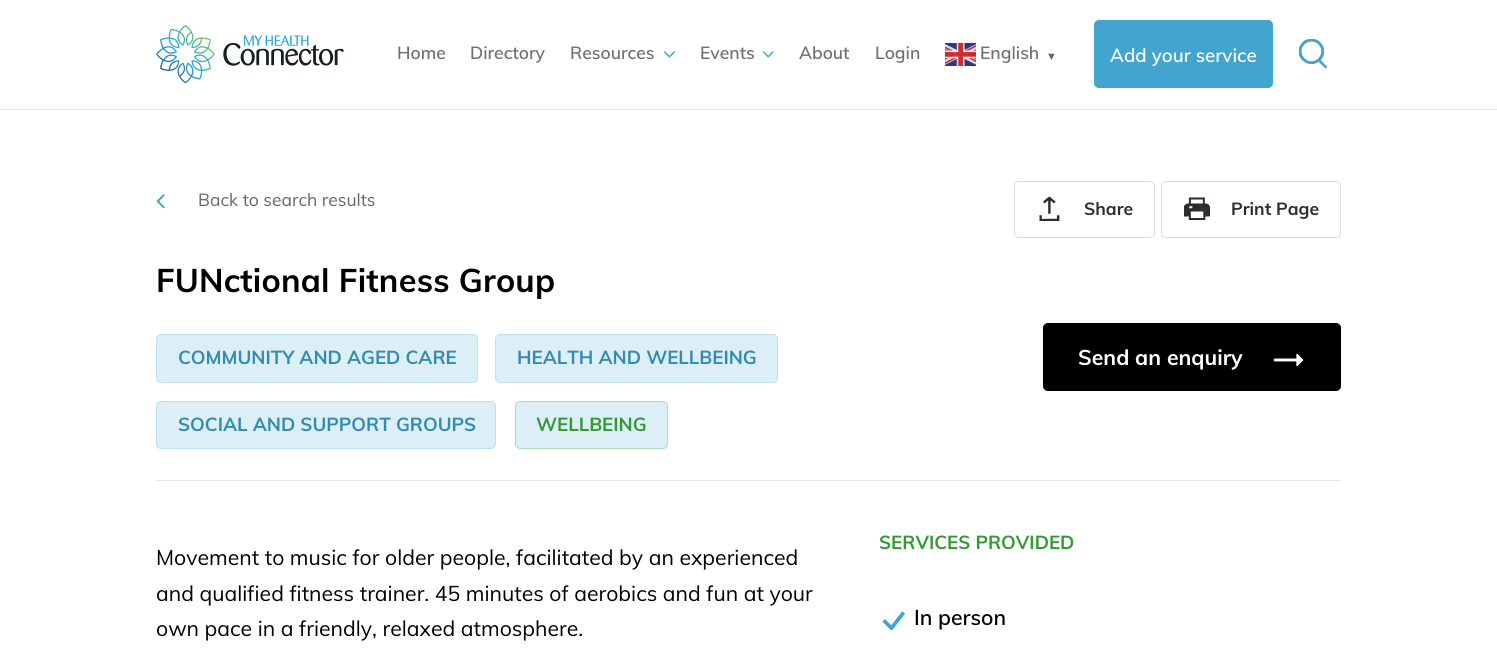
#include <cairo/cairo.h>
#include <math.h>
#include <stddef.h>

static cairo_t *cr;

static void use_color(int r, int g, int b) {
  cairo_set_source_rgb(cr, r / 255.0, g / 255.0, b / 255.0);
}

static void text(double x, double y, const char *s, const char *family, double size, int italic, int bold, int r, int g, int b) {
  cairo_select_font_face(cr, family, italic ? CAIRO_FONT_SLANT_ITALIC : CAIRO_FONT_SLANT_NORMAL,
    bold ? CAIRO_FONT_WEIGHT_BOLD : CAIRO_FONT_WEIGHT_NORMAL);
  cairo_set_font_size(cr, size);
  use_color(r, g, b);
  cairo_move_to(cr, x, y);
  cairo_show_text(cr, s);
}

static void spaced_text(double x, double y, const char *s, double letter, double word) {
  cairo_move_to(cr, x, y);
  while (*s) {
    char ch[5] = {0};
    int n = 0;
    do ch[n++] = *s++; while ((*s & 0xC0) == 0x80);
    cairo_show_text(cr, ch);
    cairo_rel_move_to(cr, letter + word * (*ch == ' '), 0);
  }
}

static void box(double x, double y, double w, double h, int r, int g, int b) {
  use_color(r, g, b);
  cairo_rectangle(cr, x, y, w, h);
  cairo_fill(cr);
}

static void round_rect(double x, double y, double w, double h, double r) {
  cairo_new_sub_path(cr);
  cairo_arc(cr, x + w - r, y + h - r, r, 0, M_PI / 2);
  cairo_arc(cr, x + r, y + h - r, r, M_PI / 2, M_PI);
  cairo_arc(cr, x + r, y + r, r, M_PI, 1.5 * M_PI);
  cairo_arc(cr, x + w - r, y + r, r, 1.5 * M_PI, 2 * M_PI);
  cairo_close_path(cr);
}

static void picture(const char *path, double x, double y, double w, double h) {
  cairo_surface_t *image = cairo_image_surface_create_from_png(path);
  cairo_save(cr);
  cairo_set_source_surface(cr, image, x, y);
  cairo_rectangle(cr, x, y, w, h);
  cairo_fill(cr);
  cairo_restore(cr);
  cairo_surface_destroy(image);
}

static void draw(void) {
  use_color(255, 255, 255);
  cairo_paint(cr);
  box(0, 109, 1497, 1, 230, 230, 230);
  picture("img_01.png", 156, 25, 188, 58);
  picture("img_02.png", 664, 51, 11, 7);
  picture("img_03.png", 762, 51, 12, 7);
  picture("img_04.png", 945, 42, 31, 25);
  use_color(66, 165, 208);
  round_rect(1094.5, 20.5, 178, 67, 4.5);
  cairo_fill_preserve(cr);
  cairo_set_line_width(cr, 1);
  cairo_stroke(cr);
  picture("img_05.png", 1298, 38, 30, 31);
  box(156, 480, 1185, 1, 230, 230, 230);
  picture("img_06.png", 156, 194, 9, 15);
  round_rect(1014.5, 181.5, 140, 56, 4.5);
  use_color(221, 221, 221);
  cairo_stroke(cr);
  picture("img_07.png", 1039, 196, 21, 25);
  round_rect(1161.5, 181.5, 179, 56, 4.5);
  cairo_stroke(cr);
  picture("img_08.png", 1184, 197, 26, 23);
  use_color(221, 239, 246);
  round_rect(156.5, 334.5, 321, 48, 4.5);
  cairo_fill_preserve(cr);
  use_color(191, 225, 239);
  cairo_stroke(cr);
  use_color(221, 239, 246);
  round_rect(495.5, 334.5, 282, 48, 4.5);
  cairo_fill_preserve(cr);
  use_color(191, 225, 239);
  cairo_stroke(cr);
  use_color(221, 239, 246);
  round_rect(156.5, 401.5, 339, 47, 4.5);
  cairo_fill_preserve(cr);
  use_color(191, 225, 239);
  cairo_stroke(cr);
  use_color(221, 239, 246);
  round_rect(515.5, 401.5, 152, 47, 4.5);
  cairo_fill_preserve(cr);
  use_color(173, 224, 184);
  cairo_stroke(cr);
  use_color(0, 0, 0);
  round_rect(1043.5, 323.5, 297, 67, 4.5);
  cairo_fill_preserve(cr);
  cairo_stroke(cr);
  picture("img_09.png", 1273, 353, 31, 13);
  picture("img_10.png", 882, 611, 24, 19);
  text(397, 59, "Home", "Muli SemiBold", 17.5, 0, 0, 112, 112, 112);
  text(470, 59, "Directory", "Muli SemiBold", 17.5, 0, 0, 112, 112, 112);
  text(570, 59, "Resources", "Muli SemiBold", 17.5, 0, 0, 112, 112, 112);
  text(700, 59, "Events", "Muli SemiBold", 17.5, 0, 0, 112, 112, 112);
  text(799, 59, "About", "Muli SemiBold", 17.5, 0, 0, 112, 112, 112);
  text(875, 59, "Login", "Muli SemiBold", 17.5, 0, 0, 112, 112, 112);
  text(980, 59, "English", "Muli SemiBold", 17.5, 0, 0, 112, 112, 112);
  cairo_select_font_face(cr, "Liberation Sans", CAIRO_FONT_SLANT_NORMAL, CAIRO_FONT_WEIGHT_BOLD);
  cairo_set_font_size(cr, 11);
  use_color(102, 102, 102);
  spaced_text(1046, 60, "▼", 6, 0);
  text(1110, 62, "Add your service", "Muli SemiBold", 18.75, 0, 0, 255, 255, 255);
  text(198, 206, "Back to search results", "Muli", 17.5, 0, 0, 102, 102, 102);
  text(1084, 215, "Share", "Muli", 17.5, 0, 1, 42, 46, 46);
  text(1231, 215, "Print Page", "Muli", 17.5, 0, 1, 42, 46, 46);
  cairo_set_font_size(cr, 32.5);
  use_color(0, 0, 0);
  spaced_text(156, 292, "FUNctional Fitness Group", 0.2, 0);
  text(178, 364, "COMMUNITY AND AGED CARE", "Muli", 18.75, 0, 1, 52, 139, 176);
  text(517, 364, "HEALTH AND WELLBEING", "Muli", 18.75, 0, 1, 52, 139, 176);
  text(178, 431, "SOCIAL AND SUPPORT GROUPS", "Muli", 18.75, 0, 1, 52, 139, 176);
  text(536, 431, "WELLBEING", "Muli", 18.75, 0, 1, 51, 153, 51);
  text(1078, 365, "Send an enquiry", "Muli", 21.25, 0, 1, 255, 255, 255);
  text(156, 565, "Movement to music for older people, facilitated by an experienced", "Muli", 21.25, 0, 0, 0, 0, 0);
  text(156, 601, "and qualified fitness trainer. 45 minutes of aerobics and fun at your", "Muli", 21.25, 0, 0, 0, 0, 0);
  text(156, 636, "own pace in a friendly, relaxed atmosphere.", "Muli", 21.25, 0, 0, 0, 0, 0);
  text(879, 549, "SERVICES PROVIDED", "Muli", 18.75, 0, 1, 51, 153, 51);
  text(914, 625, "In person", "Muli SemiBold", 21.25, 0, 0, 0, 0, 0);
}

int main(void) {
  cairo_surface_t *surface = cairo_image_surface_create(CAIRO_FORMAT_RGB24, 1497, 651);
  cr = cairo_create(surface);
  cairo_font_options_t *options = cairo_font_options_create();
  cairo_font_options_set_hint_metrics(options, CAIRO_HINT_METRICS_OFF);
  cairo_font_options_set_hint_style(options, CAIRO_HINT_STYLE_NONE);
  cairo_set_font_options(cr, options);
  cairo_set_miter_limit(cr, 4);
  draw();
  cairo_surface_write_to_png(surface, "out.png");
  cairo_font_options_destroy(options);
  cairo_destroy(cr);
  cairo_surface_destroy(surface);
  return 0;
}
